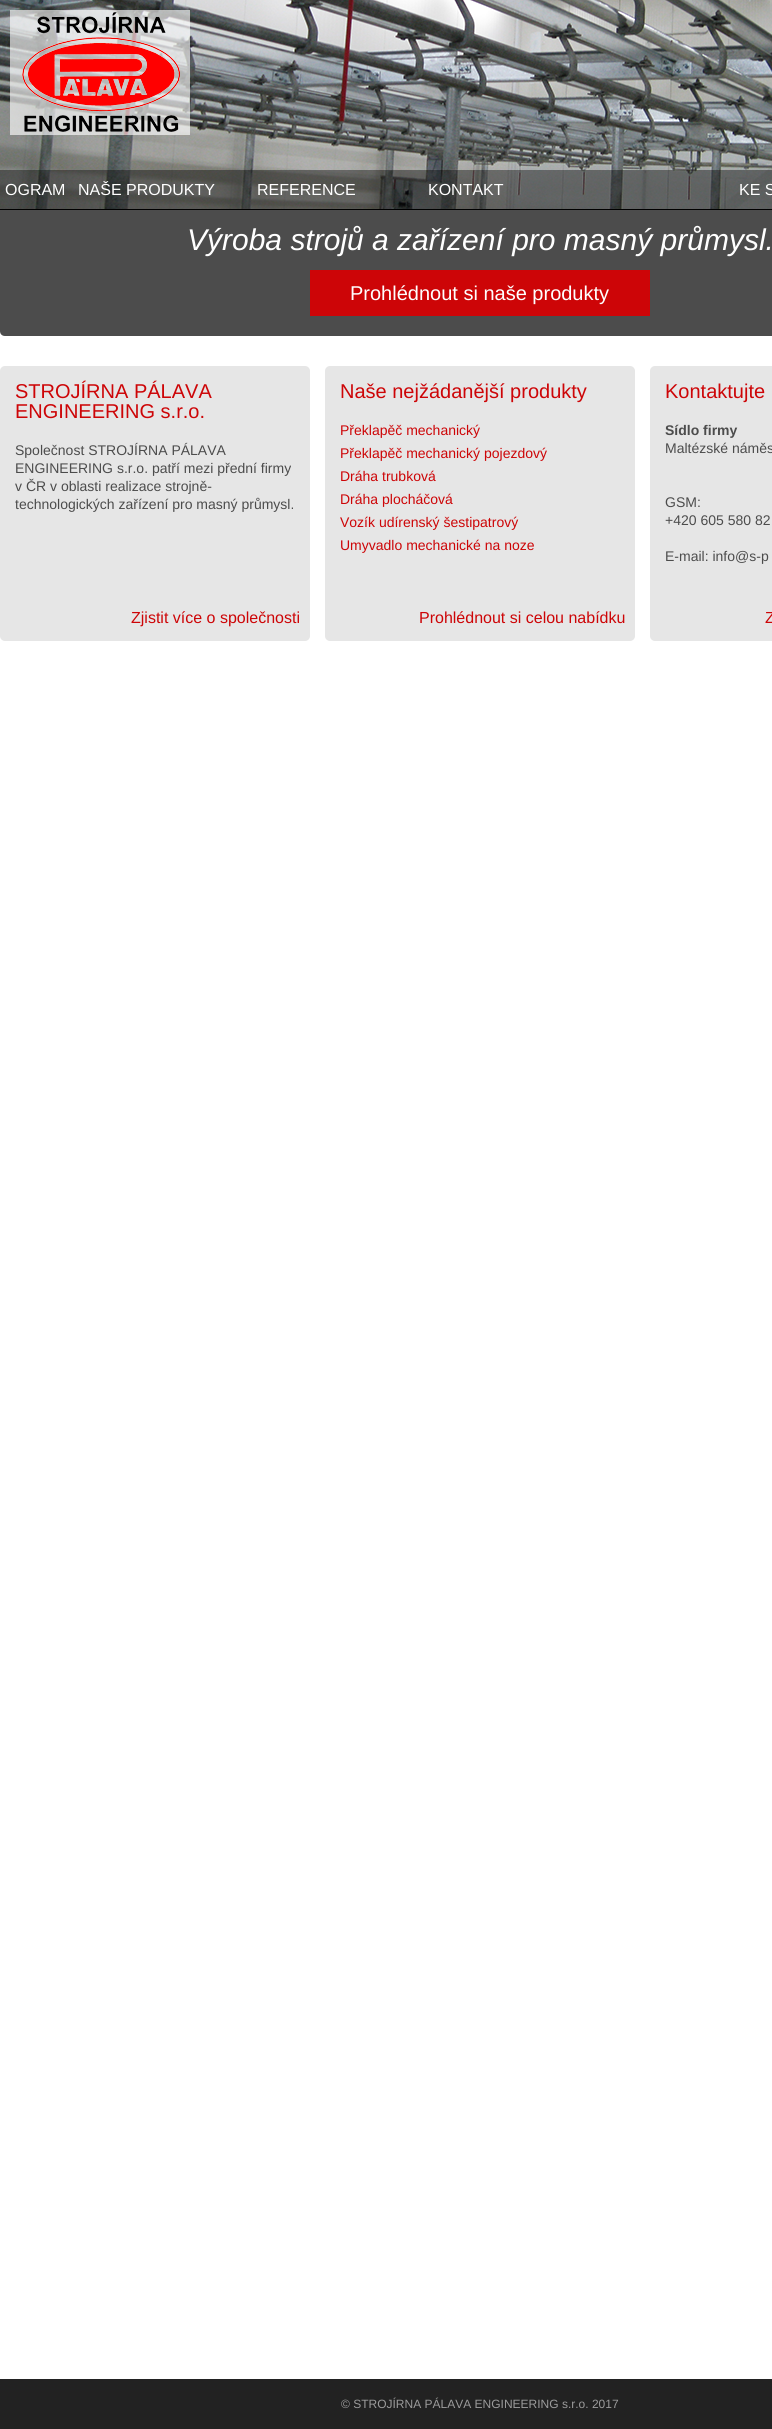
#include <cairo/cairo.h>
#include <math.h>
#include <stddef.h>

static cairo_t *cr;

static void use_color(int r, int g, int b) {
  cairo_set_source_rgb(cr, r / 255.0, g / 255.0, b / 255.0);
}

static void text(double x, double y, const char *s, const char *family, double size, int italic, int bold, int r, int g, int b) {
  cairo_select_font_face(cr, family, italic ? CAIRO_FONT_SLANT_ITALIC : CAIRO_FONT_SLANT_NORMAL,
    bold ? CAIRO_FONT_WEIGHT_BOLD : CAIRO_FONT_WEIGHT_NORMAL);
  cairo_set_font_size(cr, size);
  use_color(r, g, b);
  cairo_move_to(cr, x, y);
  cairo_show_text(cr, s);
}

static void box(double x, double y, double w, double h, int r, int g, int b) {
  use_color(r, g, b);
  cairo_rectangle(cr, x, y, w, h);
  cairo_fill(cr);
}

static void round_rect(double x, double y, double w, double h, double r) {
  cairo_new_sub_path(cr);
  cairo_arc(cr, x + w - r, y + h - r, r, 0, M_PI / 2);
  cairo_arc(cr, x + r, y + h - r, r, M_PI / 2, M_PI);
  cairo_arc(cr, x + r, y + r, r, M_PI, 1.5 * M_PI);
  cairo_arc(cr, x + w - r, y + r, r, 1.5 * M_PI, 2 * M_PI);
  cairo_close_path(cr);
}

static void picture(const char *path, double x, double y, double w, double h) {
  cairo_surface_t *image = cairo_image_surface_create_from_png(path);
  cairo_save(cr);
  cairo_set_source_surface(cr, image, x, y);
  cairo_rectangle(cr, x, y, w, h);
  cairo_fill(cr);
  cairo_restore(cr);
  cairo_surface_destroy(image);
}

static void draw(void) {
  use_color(255, 255, 255);
  cairo_paint(cr);
  picture("img_01.png", 0, 0, 772, 209);
  picture("img_02.png", 10, 10, 180, 125);
  cairo_set_source_rgba(cr, 0, 0, 0, 0.4);
  cairo_rectangle(cr, 0, 170, 772, 39);
  cairo_fill(cr);
  box(0, 209, 772, 1, 0, 0, 0);
  use_color(76, 76, 76);
  cairo_new_path(cr);
  cairo_move_to(cr, 0, 210);
  cairo_line_to(cr, 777, 210);
  cairo_line_to(cr, 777, 331);
  cairo_curve_to(cr, 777, 334, 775, 336, 772, 336);
  cairo_line_to(cr, 5, 336);
  cairo_curve_to(cr, 2, 336, 0, 334, 0, 331);
  cairo_close_path(cr);
  cairo_fill(cr);
  box(310, 270, 340, 46, 205, 5, 7);
  use_color(230, 230, 230);
  round_rect(0, 366, 310, 275, 5);
  cairo_fill(cr);
  round_rect(325, 366, 310, 275, 5);
  cairo_fill(cr);
  round_rect(650, 366, 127, 275, 5);
  cairo_fill(cr);
  box(0, 2379, 772, 50, 34, 34, 34);
  text(5, 195, "OGRAM", "Liberation Sans", 16, 0, 0, 255, 255, 255);
  text(78, 195, "NAŠE PRODUKTY", "Liberation Sans", 16, 0, 0, 255, 255, 255);
  text(257, 195, "REFERENCE", "Liberation Sans", 16, 0, 0, 255, 255, 255);
  text(428, 195, "KONTAKT", "Liberation Sans", 16, 0, 0, 255, 255, 255);
  text(739, 195, "KE S", "Liberation Sans", 16, 0, 0, 255, 255, 255);
  text(187, 250, "Výroba strojů a zařízení pro masný průmysl.", "Liberation Sans", 30, 1, 0, 255, 255, 255);
  text(350, 300, "Prohlédnout si naše produkty", "Liberation Sans", 20, 0, 0, 255, 255, 255);
  text(15, 398, "STROJÍRNA PÁLAVA", "Liberation Sans", 20, 0, 0, 205, 5, 7);
  text(15, 418, "ENGINEERING s.r.o.", "Liberation Sans", 20, 0, 0, 205, 5, 7);
  text(15, 455, "Společnost STROJÍRNA PÁLAVA", "Liberation Sans", 14, 0, 0, 76, 76, 76);
  text(15, 473, "ENGINEERING s.r.o. patří mezi přední firmy", "Liberation Sans", 14, 0, 0, 76, 76, 76);
  text(15, 491, "v ČR v oblasti realizace strojně-", "Liberation Sans", 14, 0, 0, 76, 76, 76);
  text(15, 509, "technologických zařízení pro masný průmysl.", "Liberation Sans", 14, 0, 0, 76, 76, 76);
  text(131, 623, "Zjistit více o společnosti", "Liberation Sans", 16, 0, 0, 205, 5, 7);
  text(340, 398, "Naše nejžádanější produkty", "Liberation Sans", 20, 0, 0, 205, 5, 7);
  text(340, 435, "Překlapěč mechanický", "Liberation Sans", 14, 0, 0, 205, 5, 7);
  text(340, 458, "Překlapěč mechanický pojezdový", "Liberation Sans", 14, 0, 0, 205, 5, 7);
  text(340, 481, "Dráha trubková", "Liberation Sans", 14, 0, 0, 205, 5, 7);
  text(340, 504, "Dráha plocháčová", "Liberation Sans", 14, 0, 0, 205, 5, 7);
  text(340, 527, "Vozík udírenský šestipatrový", "Liberation Sans", 14, 0, 0, 205, 5, 7);
  text(340, 550, "Umyvadlo mechanické na noze", "Liberation Sans", 14, 0, 0, 205, 5, 7);
  text(419, 623, "Prohlédnout si celou nabídku", "Liberation Sans", 16, 0, 0, 205, 5, 7);
  text(665, 398, "Kontaktujte", "Liberation Sans", 20, 0, 0, 205, 5, 7);
  text(665, 435, "Sídlo firmy", "Liberation Sans", 14, 0, 1, 76, 76, 76);
  text(665, 453, "Maltézské náměs", "Liberation Sans", 14, 0, 0, 76, 76, 76);
  text(665, 507, "GSM:", "Liberation Sans", 14, 0, 0, 76, 76, 76);
  text(665, 525, "+420 605 580 82", "Liberation Sans", 14, 0, 0, 76, 76, 76);
  text(665, 561, "E-mail: info@s-p", "Liberation Sans", 14, 0, 0, 76, 76, 76);
  text(765, 623, "Z", "Liberation Sans", 16, 0, 0, 205, 5, 7);
  text(341, 2408, "© STROJÍRNA PÁLAVA ENGINEERING s.r.o. 2017", "Liberation Sans", 12, 0, 0, 155, 155, 155);
}

int main(void) {
  cairo_surface_t *surface = cairo_image_surface_create(CAIRO_FORMAT_RGB24, 772, 2429);
  cr = cairo_create(surface);
  cairo_font_options_t *options = cairo_font_options_create();
  cairo_font_options_set_hint_metrics(options, CAIRO_HINT_METRICS_OFF);
  cairo_font_options_set_hint_style(options, CAIRO_HINT_STYLE_NONE);
  cairo_set_font_options(cr, options);
  cairo_set_miter_limit(cr, 4);
  draw();
  cairo_surface_write_to_png(surface, "out.png");
  cairo_font_options_destroy(options);
  cairo_destroy(cr);
  cairo_surface_destroy(surface);
  return 0;
}
